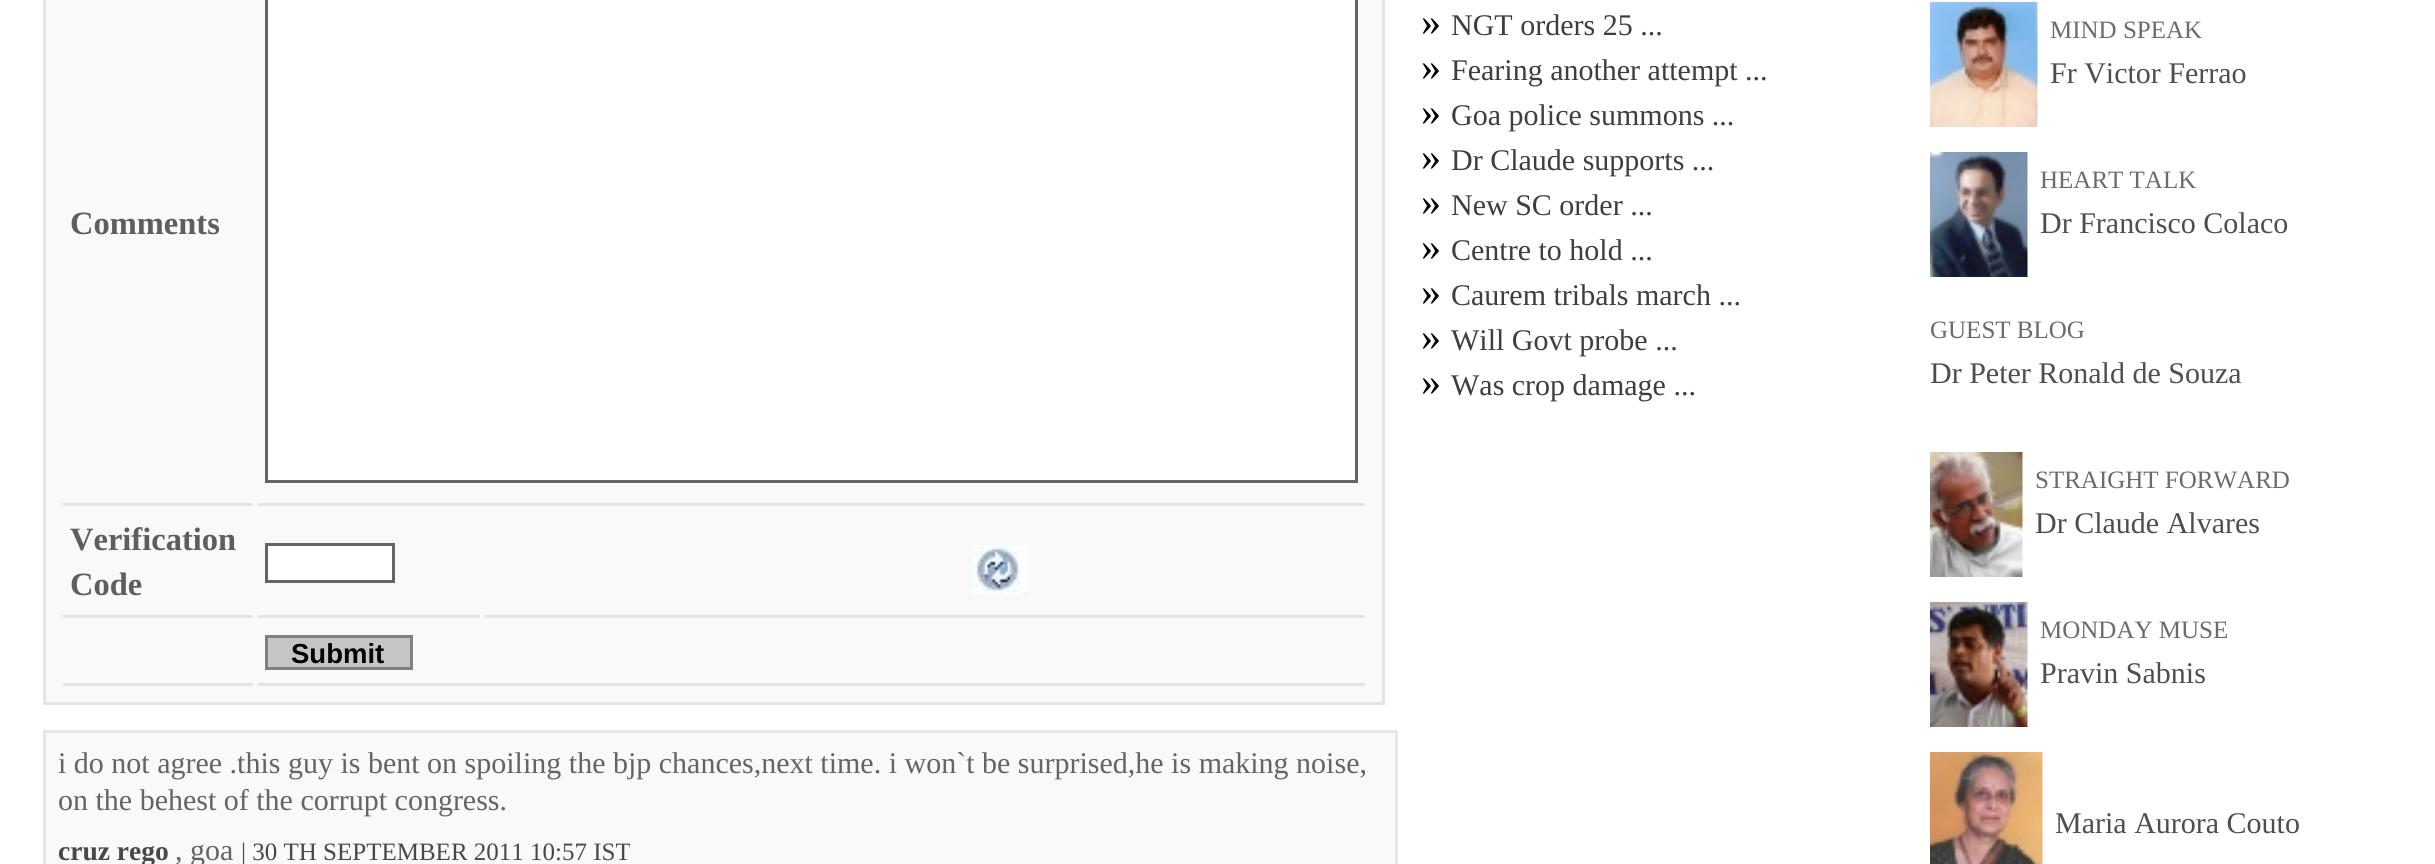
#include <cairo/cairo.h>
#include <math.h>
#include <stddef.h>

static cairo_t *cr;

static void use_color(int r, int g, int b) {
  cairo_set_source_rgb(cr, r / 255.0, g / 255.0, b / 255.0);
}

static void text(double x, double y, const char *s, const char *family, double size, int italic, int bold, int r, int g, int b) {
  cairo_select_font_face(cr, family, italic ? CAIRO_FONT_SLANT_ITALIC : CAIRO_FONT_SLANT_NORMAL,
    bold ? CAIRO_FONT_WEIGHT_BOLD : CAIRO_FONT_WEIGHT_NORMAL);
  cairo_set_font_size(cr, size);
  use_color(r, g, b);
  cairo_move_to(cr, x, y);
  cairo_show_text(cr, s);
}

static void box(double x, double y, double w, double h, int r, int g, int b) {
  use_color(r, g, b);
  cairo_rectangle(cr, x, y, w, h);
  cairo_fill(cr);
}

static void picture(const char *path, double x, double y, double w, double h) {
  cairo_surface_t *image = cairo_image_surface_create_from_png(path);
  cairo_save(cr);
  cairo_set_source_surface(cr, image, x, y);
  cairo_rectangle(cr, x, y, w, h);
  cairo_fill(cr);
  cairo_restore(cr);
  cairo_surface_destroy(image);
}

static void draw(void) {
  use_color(255, 255, 255);
  cairo_paint(cr);
  use_color(249, 249, 249);
  cairo_rectangle(cr, 44.5, -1.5, 1339, 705);
  cairo_fill_preserve(cr);
  use_color(227, 227, 227);
  cairo_set_line_width(cr, 3);
  cairo_stroke(cr);
  box(63, 503, 190, 3, 227, 227, 227);
  box(258, 503, 1107, 3, 227, 227, 227);
  use_color(255, 255, 255);
  cairo_rectangle(cr, 266.5, -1.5, 1090, 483);
  cairo_fill_preserve(cr);
  use_color(100, 100, 100);
  cairo_stroke(cr);
  box(63, 615, 190, 3, 227, 227, 227);
  box(258, 615, 222, 3, 227, 227, 227);
  use_color(255, 255, 255);
  cairo_rectangle(cr, 266.5, 544.5, 127, 37);
  cairo_fill_preserve(cr);
  use_color(100, 100, 100);
  cairo_stroke(cr);
  box(485, 615, 880, 3, 227, 227, 227);
  picture("img_01.png", 973, 545, 55, 50);
  box(258, 683, 1107, 3, 227, 227, 227);
  use_color(197, 197, 197);
  cairo_rectangle(cr, 266.5, 636.5, 145, 32);
  cairo_fill_preserve(cr);
  use_color(128, 128, 128);
  cairo_stroke(cr);
  box(63, 683, 190, 3, 227, 227, 227);
  use_color(249, 249, 249);
  cairo_rectangle(cr, 44.5, 731.5, 1352, 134);
  cairo_fill_preserve(cr);
  use_color(231, 231, 231);
  cairo_stroke(cr);
  picture("img_02.png", 1930, 2, 108, 125);
  picture("img_03.png", 1930, 152, 98, 125);
  picture("img_04.png", 1930, 452, 93, 125);
  picture("img_05.png", 1930, 602, 98, 125);
  picture("img_06.png", 1930, 752, 113, 112);
  text(70, 234, "Comments", "Liberation Serif", 32.5, 0, 1, 94, 94, 94);
  text(70, 550, "Verification", "Liberation Serif", 32.5, 0, 1, 94, 94, 94);
  text(70, 595, "Code", "Liberation Serif", 32.5, 0, 1, 94, 94, 94);
  text(291, 663, "Submit", "Liberation Sans", 27.5, 0, 1, 0, 0, 0);
  text(58, 773, "i do not agree .this guy is bent on spoiling the bjp chances,next time. i won`t be surprised,he is making noise,", "Liberation Serif", 30, 0, 0, 100, 100, 100);
  text(58, 810, "on the behest of the corrupt congress.", "Liberation Serif", 30, 0, 0, 100, 100, 100);
  text(58, 860, "cruz rego", "Liberation Serif", 27.5, 0, 1, 72, 72, 72);
  text(175, 860, ", goa", "Liberation Serif", 30, 0, 0, 100, 100, 100);
  text(241, 860, "| 30 TH SEPTEMBER 2011 10:57 IST", "Liberation Serif", 25, 0, 0, 72, 72, 72);
  text(1421, 35, "»", "Liberation Serif", 40, 0, 0, 0, 0, 0);
  text(1451, 35, "NGT orders 25 ...", "Liberation Serif", 30, 0, 0, 62, 62, 62);
  text(1421, 80, "»", "Liberation Serif", 40, 0, 0, 0, 0, 0);
  text(1451, 80, "Fearing another attempt ...", "Liberation Serif", 30, 0, 0, 62, 62, 62);
  text(1421, 125, "»", "Liberation Serif", 40, 0, 0, 0, 0, 0);
  text(1451, 125, "Goa police summons ...", "Liberation Serif", 30, 0, 0, 62, 62, 62);
  text(1421, 170, "»", "Liberation Serif", 40, 0, 0, 0, 0, 0);
  text(1451, 170, "Dr Claude supports ...", "Liberation Serif", 30, 0, 0, 62, 62, 62);
  text(1421, 215, "»", "Liberation Serif", 40, 0, 0, 0, 0, 0);
  text(1451, 215, "New SC order ...", "Liberation Serif", 30, 0, 0, 62, 62, 62);
  text(1421, 260, "»", "Liberation Serif", 40, 0, 0, 0, 0, 0);
  text(1451, 260, "Centre to hold ...", "Liberation Serif", 30, 0, 0, 62, 62, 62);
  text(1421, 305, "»", "Liberation Serif", 40, 0, 0, 0, 0, 0);
  text(1451, 305, "Caurem tribals march ...", "Liberation Serif", 30, 0, 0, 62, 62, 62);
  text(1421, 350, "»", "Liberation Serif", 40, 0, 0, 0, 0, 0);
  text(1451, 350, "Will Govt probe ...", "Liberation Serif", 30, 0, 0, 62, 62, 62);
  text(1421, 395, "»", "Liberation Serif", 40, 0, 0, 0, 0, 0);
  text(1451, 395, "Was crop damage ...", "Liberation Serif", 30, 0, 0, 62, 62, 62);
  text(2050, 38, "MIND SPEAK", "Liberation Serif", 25, 0, 0, 107, 107, 107);
  text(2050, 83, "Fr Victor Ferrao", "Liberation Serif", 30, 0, 0, 78, 78, 78);
  text(2040, 188, "HEART TALK", "Liberation Serif", 25, 0, 0, 107, 107, 107);
  text(2040, 233, "Dr Francisco Colaco", "Liberation Serif", 30, 0, 0, 78, 78, 78);
  text(1930, 338, "GUEST BLOG", "Liberation Serif", 25, 0, 0, 107, 107, 107);
  text(1930, 383, "Dr Peter Ronald de Souza", "Liberation Serif", 30, 0, 0, 78, 78, 78);
  text(2035, 488, "STRAIGHT FORWARD", "Liberation Serif", 25, 0, 0, 107, 107, 107);
  text(2035, 533, "Dr Claude Alvares", "Liberation Serif", 30, 0, 0, 78, 78, 78);
  text(2040, 638, "MONDAY MUSE", "Liberation Serif", 25, 0, 0, 107, 107, 107);
  text(2040, 683, "Pravin Sabnis", "Liberation Serif", 30, 0, 0, 78, 78, 78);
  text(2055, 833, "Maria Aurora Couto", "Liberation Serif", 30, 0, 0, 78, 78, 78);
}

int main(void) {
  cairo_surface_t *surface = cairo_image_surface_create(CAIRO_FORMAT_RGB24, 2435, 864);
  cr = cairo_create(surface);
  cairo_font_options_t *options = cairo_font_options_create();
  cairo_font_options_set_hint_metrics(options, CAIRO_HINT_METRICS_OFF);
  cairo_font_options_set_hint_style(options, CAIRO_HINT_STYLE_NONE);
  cairo_set_font_options(cr, options);
  cairo_set_miter_limit(cr, 4);
  draw();
  cairo_surface_write_to_png(surface, "out.png");
  cairo_font_options_destroy(options);
  cairo_destroy(cr);
  cairo_surface_destroy(surface);
  return 0;
}
